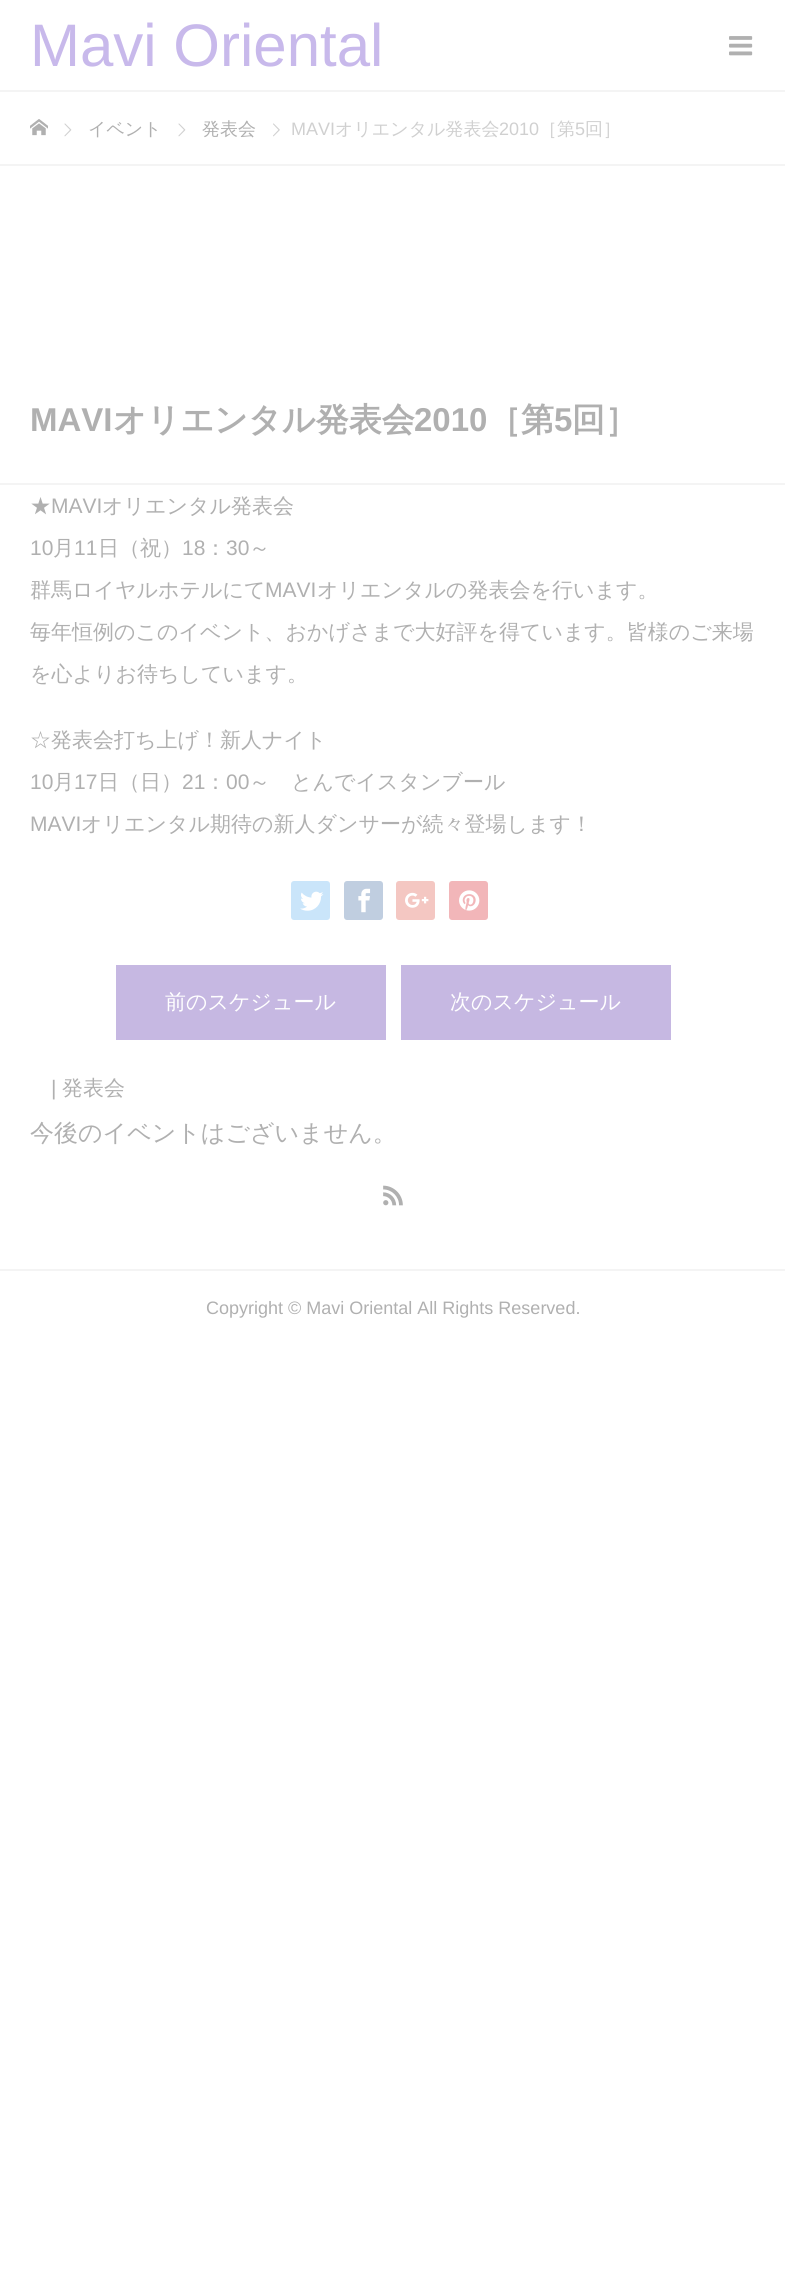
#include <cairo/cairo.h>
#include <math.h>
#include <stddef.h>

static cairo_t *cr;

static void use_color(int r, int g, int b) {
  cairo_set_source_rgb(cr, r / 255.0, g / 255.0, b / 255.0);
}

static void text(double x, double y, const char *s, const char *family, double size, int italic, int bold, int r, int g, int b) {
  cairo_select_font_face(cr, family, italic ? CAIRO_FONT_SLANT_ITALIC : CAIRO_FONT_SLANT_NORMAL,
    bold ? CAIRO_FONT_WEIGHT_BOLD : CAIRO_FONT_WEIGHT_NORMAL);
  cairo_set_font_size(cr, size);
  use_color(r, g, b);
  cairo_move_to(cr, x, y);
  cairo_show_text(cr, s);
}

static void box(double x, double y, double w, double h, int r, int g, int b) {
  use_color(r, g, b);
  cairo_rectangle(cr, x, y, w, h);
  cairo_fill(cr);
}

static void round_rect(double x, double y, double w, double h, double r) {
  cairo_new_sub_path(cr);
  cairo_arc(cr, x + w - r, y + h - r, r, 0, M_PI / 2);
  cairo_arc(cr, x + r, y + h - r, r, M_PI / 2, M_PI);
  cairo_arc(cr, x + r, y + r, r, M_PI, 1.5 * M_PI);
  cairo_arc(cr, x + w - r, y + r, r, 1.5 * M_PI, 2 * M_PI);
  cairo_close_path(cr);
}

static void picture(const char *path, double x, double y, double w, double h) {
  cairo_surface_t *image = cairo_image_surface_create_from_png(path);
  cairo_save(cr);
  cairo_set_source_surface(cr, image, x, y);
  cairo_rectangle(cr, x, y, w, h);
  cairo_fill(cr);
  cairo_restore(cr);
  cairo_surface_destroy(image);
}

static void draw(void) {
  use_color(255, 255, 255);
  cairo_paint(cr);
  picture("img_01.png", 729, 36, 24, 20);
  box(0, 90, 785, 2, 244, 244, 244);
  box(0, 164, 785, 2, 244, 244, 244);
  picture("img_02.png", 30, 119, 18, 17);
  picture("img_03.png", 64, 123, 8, 14);
  picture("img_03.png", 178, 123, 8, 14);
  picture("img_04.png", 273, 123, 7, 14);
  box(0, 483, 785, 2, 244, 244, 244);
  use_color(202, 229, 250);
  round_rect(291, 881, 39, 39, 3);
  cairo_fill(cr);
  picture("img_05.png", 300, 891, 24, 20);
  use_color(192, 206, 224);
  round_rect(344, 881, 39, 39, 3);
  cairo_fill(cr);
  picture("img_06.png", 358, 888, 13, 25);
  use_color(244, 199, 194);
  round_rect(396, 881, 39, 39, 3);
  cairo_fill(cr);
  picture("img_07.png", 405, 892, 24, 16);
  use_color(242, 182, 185);
  round_rect(449, 881, 39, 39, 3);
  cairo_fill(cr);
  picture("img_08.png", 459, 890, 21, 21);
  box(116, 965, 270, 75, 198, 184, 226);
  box(401, 965, 270, 75, 198, 184, 226);
  picture("img_09.png", 383, 1185, 20, 21);
  box(0, 1269, 785, 2, 244, 244, 244);
  text(30, 66, "Mavi Oriental", "Liberation Sans", 60, 0, 0, 200, 185, 235);
  text(88, 135, "イベント", "WenQuanYi Zen Hei Medium", 18, 0, 0, 176, 176, 176);
  text(202, 135, "発表会", "WenQuanYi Zen Hei Medium", 18, 0, 0, 176, 176, 176);
  text(291, 135, "MAVI", "Liberation Sans", 18, 0, 0, 208, 208, 208);
  text(335, 135, "オリエンタル発表会", "WenQuanYi Zen Hei Medium", 18, 0, 0, 208, 208, 208);
  text(499, 135, "2010", "Liberation Sans", 18, 0, 0, 208, 208, 208);
  text(539, 135, "［第", "WenQuanYi Zen Hei Medium", 18, 0, 0, 208, 208, 208);
  text(575, 135, "5", "Liberation Sans", 18, 0, 0, 208, 208, 208);
  text(585, 135, "回］", "WenQuanYi Zen Hei Medium", 18, 0, 0, 208, 208, 208);
  text(30, 431, "MAVI", "Liberation Sans", 33, 0, 1, 176, 176, 176);
  text(113, 431, "オリエンタル発表会", "WenQuanYi Zen Hei", 33, 0, 1, 176, 176, 176);
  text(414, 431, "2010", "Liberation Sans", 33, 0, 1, 176, 176, 176);
  text(488, 431, "［第", "WenQuanYi Zen Hei", 33, 0, 1, 176, 176, 176);
  text(554, 431, "5", "Liberation Sans", 33, 0, 1, 176, 176, 176);
  text(572, 431, "回］", "WenQuanYi Zen Hei", 33, 0, 1, 176, 176, 176);
  text(30, 513, "★", "WenQuanYi Zen Hei Medium", 21, 0, 0, 176, 176, 176);
  text(51, 513, "MAVI", "Liberation Sans", 21, 0, 0, 176, 176, 176);
  text(102, 513, "オリエンタル発表会", "WenQuanYi Zen Hei Medium", 21, 0, 0, 176, 176, 176);
  text(30, 555, "10", "Liberation Sans", 21, 0, 0, 176, 176, 176);
  text(53, 555, "月", "WenQuanYi Zen Hei Medium", 21, 0, 0, 176, 176, 176);
  text(74, 555, "11", "Liberation Sans", 21, 0, 0, 176, 176, 176);
  text(98, 555, "日（祝）", "WenQuanYi Zen Hei Medium", 21, 0, 0, 176, 176, 176);
  text(182, 555, "18", "Liberation Sans", 21, 0, 0, 176, 176, 176);
  text(205, 555, "：", "WenQuanYi Zen Hei Medium", 21, 0, 0, 176, 176, 176);
  text(226, 555, "30", "Liberation Sans", 21, 0, 0, 176, 176, 176);
  text(249, 555, "～", "WenQuanYi Zen Hei Medium", 21, 0, 0, 176, 176, 176);
  text(30, 597, "群馬ロイヤルホテルにて", "WenQuanYi Zen Hei Medium", 21, 0, 0, 176, 176, 176);
  text(265, 597, "MAVI", "Liberation Sans", 21, 0, 0, 176, 176, 176);
  text(317, 597, "オリエンタルの発表会を行います。", "WenQuanYi Zen Hei Medium", 21, 0, 0, 176, 176, 176);
  text(30, 639, "毎年恒例のこのイベント、おかげさまで大好評を得ています。皆様のご来場", "WenQuanYi Zen Hei Medium", 21, 0, 0, 176, 176, 176);
  text(30, 681, "を心よりお待ちしています。", "WenQuanYi Zen Hei Medium", 21, 0, 0, 176, 176, 176);
  text(30, 747, "☆発表会打ち上げ！新人ナイト", "WenQuanYi Zen Hei Medium", 21, 0, 0, 176, 176, 176);
  text(30, 789, "10", "Liberation Sans", 21, 0, 0, 176, 176, 176);
  text(53, 789, "月", "WenQuanYi Zen Hei Medium", 21, 0, 0, 176, 176, 176);
  text(74, 789, "17", "Liberation Sans", 21, 0, 0, 176, 176, 176);
  text(98, 789, "日（日）", "WenQuanYi Zen Hei Medium", 21, 0, 0, 176, 176, 176);
  text(182, 789, "21", "Liberation Sans", 21, 0, 0, 176, 176, 176);
  text(205, 789, "：", "WenQuanYi Zen Hei Medium", 21, 0, 0, 176, 176, 176);
  text(226, 789, "00", "Liberation Sans", 21, 0, 0, 176, 176, 176);
  text(249, 789, "～　とんでイスタンブール", "WenQuanYi Zen Hei Medium", 21, 0, 0, 176, 176, 176);
  text(30, 831, "MAVI", "Liberation Sans", 21, 0, 0, 176, 176, 176);
  text(81, 831, "オリエンタル期待の新人ダンサーが続々登場します！", "WenQuanYi Zen Hei Medium", 21, 0, 0, 176, 176, 176);
  text(165, 1009, "前のスケジュール", "WenQuanYi Zen Hei Medium", 21, 0, 0, 255, 255, 255);
  text(450, 1009, "次のスケジュール", "WenQuanYi Zen Hei Medium", 21, 0, 0, 255, 255, 255);
  text(51, 1095, "|", "Liberation Sans", 21, 0, 0, 176, 176, 176);
  text(62, 1095, "発表会", "WenQuanYi Zen Hei Medium", 21, 0, 0, 176, 176, 176);
  text(30, 1141, "今後のイベントはございません。", "WenQuanYi Zen Hei Medium", 24, 0, 0, 176, 176, 176);
  text(206, 1314, "Copyright © Mavi Oriental All Rights Reserved.", "Liberation Sans", 18, 0, 0, 176, 176, 176);
}

int main(void) {
  cairo_surface_t *surface = cairo_image_surface_create(CAIRO_FORMAT_RGB24, 785, 2270);
  cr = cairo_create(surface);
  cairo_font_options_t *options = cairo_font_options_create();
  cairo_font_options_set_hint_metrics(options, CAIRO_HINT_METRICS_OFF);
  cairo_font_options_set_hint_style(options, CAIRO_HINT_STYLE_NONE);
  cairo_set_font_options(cr, options);
  cairo_set_miter_limit(cr, 4);
  draw();
  cairo_surface_write_to_png(surface, "out.png");
  cairo_font_options_destroy(options);
  cairo_destroy(cr);
  cairo_surface_destroy(surface);
  return 0;
}
